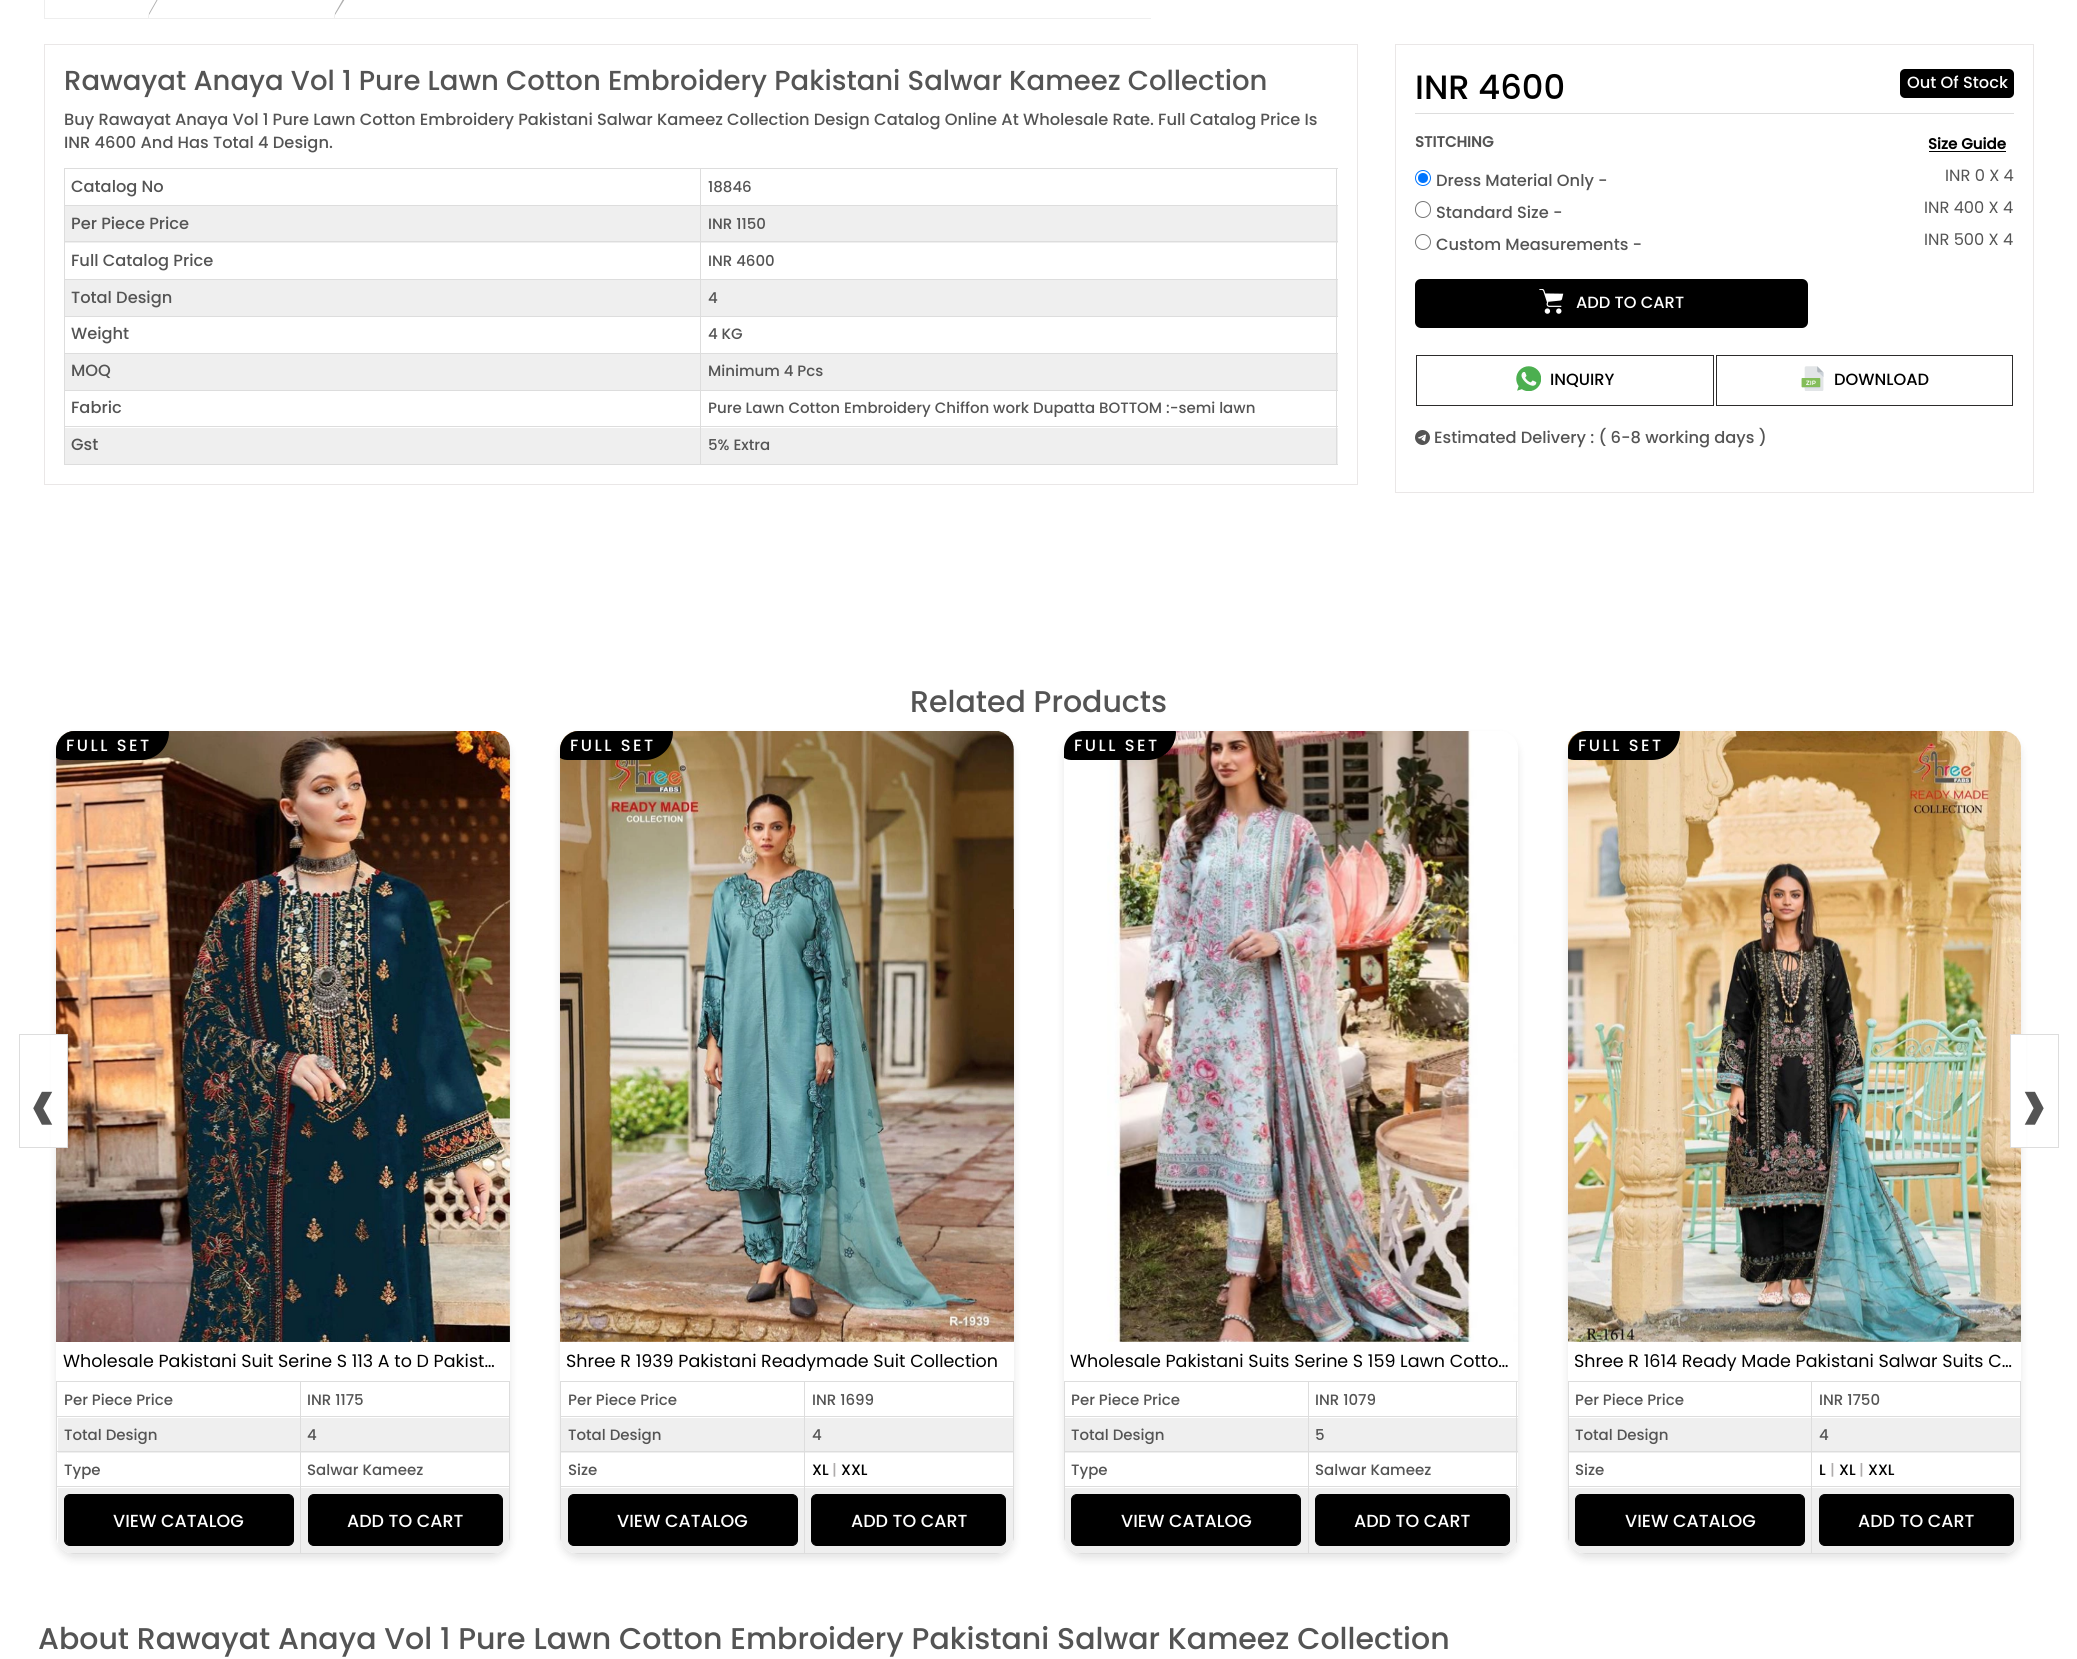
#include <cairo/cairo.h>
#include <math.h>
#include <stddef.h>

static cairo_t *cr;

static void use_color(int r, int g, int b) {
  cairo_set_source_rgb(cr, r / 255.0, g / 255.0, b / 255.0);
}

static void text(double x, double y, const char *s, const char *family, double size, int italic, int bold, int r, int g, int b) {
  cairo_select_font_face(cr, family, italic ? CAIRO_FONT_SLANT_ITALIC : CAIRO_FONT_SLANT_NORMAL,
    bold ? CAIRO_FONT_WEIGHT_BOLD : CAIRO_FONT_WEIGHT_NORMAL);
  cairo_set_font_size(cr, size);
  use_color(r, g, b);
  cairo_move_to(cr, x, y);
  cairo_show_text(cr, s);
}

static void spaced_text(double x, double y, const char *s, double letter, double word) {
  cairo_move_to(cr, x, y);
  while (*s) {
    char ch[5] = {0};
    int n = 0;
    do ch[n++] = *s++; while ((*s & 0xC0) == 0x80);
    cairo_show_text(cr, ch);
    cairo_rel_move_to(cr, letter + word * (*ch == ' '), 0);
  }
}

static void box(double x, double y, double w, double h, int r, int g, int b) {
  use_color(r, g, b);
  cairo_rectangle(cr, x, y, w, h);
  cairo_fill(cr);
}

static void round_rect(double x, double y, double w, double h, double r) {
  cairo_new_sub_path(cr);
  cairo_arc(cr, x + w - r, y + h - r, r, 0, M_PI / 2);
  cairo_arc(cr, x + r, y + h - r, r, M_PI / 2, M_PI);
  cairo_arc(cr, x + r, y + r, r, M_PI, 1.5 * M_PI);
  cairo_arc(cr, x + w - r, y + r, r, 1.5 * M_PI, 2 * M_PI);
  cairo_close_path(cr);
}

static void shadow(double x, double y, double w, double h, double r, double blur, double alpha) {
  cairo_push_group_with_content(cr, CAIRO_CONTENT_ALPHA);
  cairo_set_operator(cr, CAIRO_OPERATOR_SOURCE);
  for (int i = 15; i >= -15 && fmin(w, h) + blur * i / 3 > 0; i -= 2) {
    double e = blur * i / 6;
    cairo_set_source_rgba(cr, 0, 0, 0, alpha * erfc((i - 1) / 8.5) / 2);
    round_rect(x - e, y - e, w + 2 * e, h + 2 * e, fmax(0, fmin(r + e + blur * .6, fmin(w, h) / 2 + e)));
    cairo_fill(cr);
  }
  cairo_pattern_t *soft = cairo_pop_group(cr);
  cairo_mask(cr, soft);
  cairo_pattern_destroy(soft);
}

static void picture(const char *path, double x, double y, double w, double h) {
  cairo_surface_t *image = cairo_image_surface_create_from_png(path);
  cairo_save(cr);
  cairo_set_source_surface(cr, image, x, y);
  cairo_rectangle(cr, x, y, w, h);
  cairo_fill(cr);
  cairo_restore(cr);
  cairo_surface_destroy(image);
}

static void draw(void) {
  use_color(255, 255, 255);
  cairo_paint(cr);
  box(44, 18, 1107, 1, 238, 238, 238);
  box(44, 0, 1, 19, 238, 238, 238);
  use_color(173, 173, 173);
  cairo_new_path(cr);
  cairo_move_to(cr, 149, 15);
  cairo_line_to(cr, 149, -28);
  cairo_line_to(cr, 161, -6);
  cairo_close_path(cr);
  cairo_fill(cr);
  box(148, 13, 1, 6, 238, 238, 238);
  use_color(255, 255, 255);
  cairo_new_path(cr);
  cairo_move_to(cr, 148, 15);
  cairo_line_to(cr, 148, -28);
  cairo_line_to(cr, 160, -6);
  cairo_close_path(cr);
  cairo_fill(cr);
  use_color(173, 173, 173);
  cairo_new_path(cr);
  cairo_move_to(cr, 335, 15);
  cairo_line_to(cr, 335, -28);
  cairo_line_to(cr, 348, -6);
  cairo_close_path(cr);
  cairo_fill(cr);
  box(334, 13, 1, 6, 238, 238, 238);
  use_color(255, 255, 255);
  cairo_new_path(cr);
  cairo_move_to(cr, 334, 15);
  cairo_line_to(cr, 334, -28);
  cairo_line_to(cr, 346, -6);
  cairo_close_path(cr);
  cairo_fill(cr);
  cairo_rectangle(cr, 44.5, 44.5, 1313, 440);
  use_color(234, 231, 231);
  cairo_set_line_width(cr, 1);
  cairo_stroke(cr);
  box(64, 168, 1274, 1, 221, 221, 221);
  box(65, 206, 1273, 37, 239, 239, 239);
  box(65, 280, 1273, 36, 239, 239, 239);
  box(65, 354, 1273, 36, 239, 239, 239);
  box(65, 428, 1273, 36, 239, 239, 239);
  box(1336, 168, 1, 297, 221, 221, 221);
  box(64, 464, 1274, 1, 221, 221, 221);
  box(64, 168, 1, 297, 221, 221, 221);
  box(700, 205, 638, 1, 221, 221, 221);
  box(700, 241, 638, 1, 221, 221, 221);
  box(700, 279, 638, 1, 221, 221, 221);
  box(700, 316, 638, 1, 221, 221, 221);
  box(700, 353, 638, 1, 221, 221, 221);
  box(700, 390, 638, 1, 221, 221, 221);
  box(700, 426, 638, 1, 221, 221, 221);
  box(700, 426, 1, 39, 221, 221, 221);
  box(64, 426, 637, 1, 221, 221, 221);
  box(700, 390, 1, 38, 221, 221, 221);
  box(64, 390, 637, 1, 221, 221, 221);
  box(700, 353, 1, 38, 221, 221, 221);
  box(64, 353, 637, 1, 221, 221, 221);
  box(700, 316, 1, 38, 221, 221, 221);
  box(64, 316, 637, 1, 221, 221, 221);
  box(700, 279, 1, 39, 221, 221, 221);
  box(64, 279, 637, 1, 221, 221, 221);
  box(700, 241, 1, 39, 221, 221, 221);
  box(64, 241, 637, 1, 221, 221, 221);
  box(700, 205, 1, 38, 221, 221, 221);
  box(64, 205, 637, 1, 221, 221, 221);
  box(700, 168, 1, 38, 221, 221, 221);
  cairo_rectangle(cr, 1395.5, 44.5, 638, 448);
  use_color(234, 231, 231);
  cairo_stroke(cr);
  box(1415, 113, 599, 1, 221, 221, 221);
  use_color(0, 0, 0);
  round_rect(1900, 69, 114, 29, 5);
  cairo_fill(cr);
  box(1929, 151, 77, 1, 0, 0, 0);
  cairo_arc(cr, 1423, 178, 7.5, 0, 2 * M_PI);
  use_color(0, 117, 255);
  cairo_stroke(cr);
  cairo_arc(cr, 1423, 178, 5, 0, 2 * M_PI);
  cairo_fill(cr);
  round_rect(1415.5, 201.5, 15, 16, 7.5);
  use_color(118, 118, 118);
  cairo_stroke(cr);
  cairo_arc(cr, 1423, 242, 7.5, 0, 2 * M_PI);
  cairo_stroke(cr);
  use_color(0, 0, 0);
  round_rect(1415, 279, 393, 49, 6);
  cairo_fill(cr);
  picture("img_01.png", 1539, 289, 25, 25);
  cairo_rectangle(cr, 1416.5, 355.5, 297, 50);
  use_color(44, 43, 43);
  cairo_stroke(cr);
  picture("img_02.png", 1516, 366, 25, 25);
  cairo_rectangle(cr, 1716.5, 355.5, 296, 50);
  cairo_stroke(cr);
  picture("img_03.png", 1801, 366, 23, 25);
  picture("img_04.png", 1415, 430, 15, 15);
  cairo_save(cr);
  cairo_set_fill_rule(cr, CAIRO_FILL_RULE_EVEN_ODD);
  cairo_new_path(cr);
  cairo_move_to(cr, 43, 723);
  cairo_line_to(cr, 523, 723);
  cairo_line_to(cr, 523, 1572);
  cairo_line_to(cr, 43, 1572);
  cairo_close_path(cr);
  cairo_move_to(cr, 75, 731);
  cairo_line_to(cr, 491, 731);
  cairo_curve_to(cr, 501.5, 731, 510, 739.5, 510, 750);
  cairo_line_to(cr, 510, 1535);
  cairo_curve_to(cr, 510, 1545.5, 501.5, 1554, 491, 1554);
  cairo_line_to(cr, 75, 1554);
  cairo_curve_to(cr, 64.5, 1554, 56, 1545.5, 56, 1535);
  cairo_line_to(cr, 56, 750);
  cairo_curve_to(cr, 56, 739.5, 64.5, 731, 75, 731);
  cairo_close_path(cr);
  cairo_clip(cr);
  use_color(0, 0, 0);
  shadow(56, 736, 454, 823, 19, 4, 0.1);
  cairo_restore(cr);
  picture("img_05.png", 56, 731, 454, 611);
  cairo_save(cr);
  round_rect(56, 731, 454, 823, 19);
  cairo_clip(cr);
  use_color(0, 0, 0);
  cairo_new_path(cr);
  cairo_move_to(cr, 54, 731);
  cairo_line_to(cr, 168, 731);
  cairo_curve_to(cr, 168.5, 731, 169, 731.5, 169, 732);
  cairo_curve_to(cr, 169, 747.5, 156.5, 760, 141, 760);
  cairo_line_to(cr, 63, 760);
  cairo_curve_to(cr, 56, 760, 50, 754, 50, 747);
  cairo_line_to(cr, 50, 735);
  cairo_curve_to(cr, 50, 733, 52, 731, 54, 731);
  cairo_close_path(cr);
  cairo_fill(cr);
  cairo_restore(cr);
  box(56, 1381, 454, 1, 221, 221, 221);
  cairo_save(cr);
  round_rect(56, 731, 454, 823, 19);
  cairo_clip(cr);
  use_color(239, 239, 239);
  cairo_new_path(cr);
  cairo_move_to(cr, 58, 1488);
  cairo_line_to(cr, 510, 1488);
  cairo_line_to(cr, 510, 1535);
  cairo_curve_to(cr, 510, 1545.5, 501.5, 1554, 491, 1554);
  cairo_line_to(cr, 58, 1554);
  cairo_close_path(cr);
  cairo_fill(cr);
  box(509, 1381, 1, 160, 221, 221, 221);
  box(56, 1381, 1, 160, 221, 221, 221);
  cairo_restore(cr);
  box(300, 1416, 210, 1, 221, 221, 221);
  box(58, 1418, 451, 35, 239, 239, 239);
  box(300, 1451, 210, 1, 221, 221, 221);
  box(300, 1486, 210, 1, 221, 221, 221);
  cairo_save(cr);
  round_rect(56, 731, 454, 823, 19);
  cairo_clip(cr);
  box(300, 1553, 197, 1, 221, 221, 221);
  cairo_restore(cr);
  box(300, 1486, 1, 68, 221, 221, 221);
  box(56, 1486, 245, 1, 221, 221, 221);
  box(300, 1451, 1, 37, 221, 221, 221);
  box(56, 1451, 245, 1, 221, 221, 221);
  box(300, 1416, 1, 37, 221, 221, 221);
  box(56, 1416, 245, 1, 221, 221, 221);
  box(300, 1381, 1, 37, 221, 221, 221);
  cairo_save(cr);
  round_rect(56, 731, 454, 823, 19);
  cairo_clip(cr);
  box(69, 1553, 232, 1, 221, 221, 221);
  box(56, 1486, 1, 55, 221, 221, 221);
  cairo_restore(cr);
  use_color(0, 0, 0);
  round_rect(64.5, 1494.5, 229, 51, 5.5);
  cairo_fill_preserve(cr);
  cairo_stroke(cr);
  cairo_save(cr);
  round_rect(56, 731, 454, 823, 19);
  cairo_clip(cr);
  box(509, 1486, 1, 55, 221, 221, 221);
  cairo_restore(cr);
  round_rect(308.5, 1494.5, 194, 51, 5.5);
  cairo_fill_preserve(cr);
  cairo_stroke(cr);
  cairo_save(cr);
  cairo_set_fill_rule(cr, CAIRO_FILL_RULE_EVEN_ODD);
  cairo_new_path(cr);
  cairo_move_to(cr, 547, 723);
  cairo_line_to(cr, 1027, 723);
  cairo_line_to(cr, 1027, 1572);
  cairo_line_to(cr, 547, 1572);
  cairo_close_path(cr);
  cairo_move_to(cr, 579, 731);
  cairo_line_to(cr, 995, 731);
  cairo_curve_to(cr, 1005.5, 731, 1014, 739.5, 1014, 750);
  cairo_line_to(cr, 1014, 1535);
  cairo_curve_to(cr, 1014, 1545.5, 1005.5, 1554, 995, 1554);
  cairo_line_to(cr, 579, 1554);
  cairo_curve_to(cr, 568.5, 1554, 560, 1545.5, 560, 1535);
  cairo_line_to(cr, 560, 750);
  cairo_curve_to(cr, 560, 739.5, 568.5, 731, 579, 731);
  cairo_close_path(cr);
  cairo_clip(cr);
  use_color(0, 0, 0);
  shadow(560, 736, 454, 823, 19, 4, 0.1);
  cairo_restore(cr);
  picture("img_06.png", 560, 731, 454, 611);
  cairo_save(cr);
  round_rect(560, 731, 454, 823, 19);
  cairo_clip(cr);
  cairo_new_path(cr);
  cairo_move_to(cr, 558, 731);
  cairo_line_to(cr, 672, 731);
  cairo_curve_to(cr, 672.5, 731, 673, 731.5, 673, 732);
  cairo_curve_to(cr, 673, 747.5, 660.5, 760, 645, 760);
  cairo_line_to(cr, 567, 760);
  cairo_curve_to(cr, 560, 760, 554, 754, 554, 747);
  cairo_line_to(cr, 554, 735);
  cairo_curve_to(cr, 554, 733, 556, 731, 558, 731);
  cairo_close_path(cr);
  cairo_fill(cr);
  cairo_restore(cr);
  box(560, 1381, 454, 1, 221, 221, 221);
  cairo_save(cr);
  round_rect(560, 731, 454, 823, 19);
  cairo_clip(cr);
  use_color(239, 239, 239);
  cairo_new_path(cr);
  cairo_move_to(cr, 561, 1488);
  cairo_line_to(cr, 1014, 1488);
  cairo_line_to(cr, 1014, 1535);
  cairo_curve_to(cr, 1014, 1545.5, 1005.5, 1554, 995, 1554);
  cairo_line_to(cr, 561, 1554);
  cairo_close_path(cr);
  cairo_fill(cr);
  box(1013, 1381, 1, 160, 221, 221, 221);
  box(560, 1381, 1, 160, 221, 221, 221);
  cairo_restore(cr);
  box(804, 1416, 210, 1, 221, 221, 221);
  box(561, 1418, 452, 35, 239, 239, 239);
  box(804, 1451, 210, 1, 221, 221, 221);
  box(804, 1486, 210, 1, 221, 221, 221);
  cairo_save(cr);
  round_rect(560, 731, 454, 823, 19);
  cairo_clip(cr);
  box(804, 1553, 197, 1, 221, 221, 221);
  cairo_restore(cr);
  box(804, 1486, 1, 68, 221, 221, 221);
  box(560, 1486, 245, 1, 221, 221, 221);
  box(804, 1451, 1, 37, 221, 221, 221);
  box(560, 1451, 245, 1, 221, 221, 221);
  box(804, 1416, 1, 37, 221, 221, 221);
  box(560, 1416, 245, 1, 221, 221, 221);
  box(804, 1381, 1, 37, 221, 221, 221);
  cairo_save(cr);
  round_rect(560, 731, 454, 823, 19);
  cairo_clip(cr);
  box(573, 1553, 232, 1, 221, 221, 221);
  box(560, 1486, 1, 55, 221, 221, 221);
  cairo_restore(cr);
  use_color(0, 0, 0);
  round_rect(568.5, 1494.5, 229, 51, 5.5);
  cairo_fill_preserve(cr);
  cairo_stroke(cr);
  cairo_save(cr);
  round_rect(560, 731, 454, 823, 19);
  cairo_clip(cr);
  box(1013, 1486, 1, 55, 221, 221, 221);
  cairo_restore(cr);
  round_rect(811.5, 1494.5, 194, 51, 5.5);
  cairo_fill_preserve(cr);
  cairo_stroke(cr);
  cairo_save(cr);
  cairo_set_fill_rule(cr, CAIRO_FILL_RULE_EVEN_ODD);
  cairo_new_path(cr);
  cairo_move_to(cr, 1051, 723);
  cairo_line_to(cr, 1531, 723);
  cairo_line_to(cr, 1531, 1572);
  cairo_line_to(cr, 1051, 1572);
  cairo_close_path(cr);
  cairo_move_to(cr, 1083, 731);
  cairo_line_to(cr, 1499, 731);
  cairo_curve_to(cr, 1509.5, 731, 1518, 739.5, 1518, 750);
  cairo_line_to(cr, 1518, 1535);
  cairo_curve_to(cr, 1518, 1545.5, 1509.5, 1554, 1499, 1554);
  cairo_line_to(cr, 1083, 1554);
  cairo_curve_to(cr, 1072.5, 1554, 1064, 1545.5, 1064, 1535);
  cairo_line_to(cr, 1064, 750);
  cairo_curve_to(cr, 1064, 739.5, 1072.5, 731, 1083, 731);
  cairo_close_path(cr);
  cairo_clip(cr);
  use_color(0, 0, 0);
  shadow(1064, 736, 454, 823, 19, 4, 0.1);
  cairo_restore(cr);
  picture("img_07.png", 1107, 731, 411, 611);
  cairo_save(cr);
  round_rect(1064, 731, 454, 823, 19);
  cairo_clip(cr);
  cairo_new_path(cr);
  cairo_move_to(cr, 1062, 731);
  cairo_line_to(cr, 1175, 731);
  cairo_curve_to(cr, 1175.5, 731, 1176, 731.5, 1176, 732);
  cairo_curve_to(cr, 1176, 747.5, 1163.5, 760, 1148, 760);
  cairo_line_to(cr, 1071, 760);
  cairo_curve_to(cr, 1064, 760, 1058, 754, 1058, 747);
  cairo_line_to(cr, 1058, 735);
  cairo_curve_to(cr, 1058, 733, 1060, 731, 1062, 731);
  cairo_close_path(cr);
  cairo_fill(cr);
  cairo_restore(cr);
  box(1064, 1381, 454, 1, 221, 221, 221);
  box(1065, 1418, 453, 35, 239, 239, 239);
  cairo_save(cr);
  round_rect(1064, 731, 454, 823, 19);
  cairo_clip(cr);
  cairo_new_path(cr);
  cairo_move_to(cr, 1065, 1488);
  cairo_line_to(cr, 1518, 1488);
  cairo_line_to(cr, 1518, 1535);
  cairo_curve_to(cr, 1518, 1545.5, 1509.5, 1554, 1499, 1554);
  cairo_line_to(cr, 1065, 1554);
  cairo_close_path(cr);
  cairo_fill(cr);
  box(1516, 1381, 1, 163, 221, 221, 221);
  box(1064, 1381, 1, 160, 221, 221, 221);
  cairo_restore(cr);
  box(1308, 1416, 210, 1, 221, 221, 221);
  box(1308, 1451, 210, 1, 221, 221, 221);
  box(1308, 1486, 210, 1, 221, 221, 221);
  cairo_save(cr);
  round_rect(1064, 731, 454, 823, 19);
  cairo_clip(cr);
  box(1308, 1553, 197, 1, 221, 221, 221);
  cairo_restore(cr);
  box(1308, 1486, 1, 68, 221, 221, 221);
  box(1064, 1486, 245, 1, 221, 221, 221);
  box(1308, 1451, 1, 37, 221, 221, 221);
  box(1064, 1451, 245, 1, 221, 221, 221);
  box(1308, 1416, 1, 37, 221, 221, 221);
  box(1064, 1416, 245, 1, 221, 221, 221);
  box(1308, 1381, 1, 37, 221, 221, 221);
  cairo_save(cr);
  round_rect(1064, 731, 454, 823, 19);
  cairo_clip(cr);
  box(1077, 1553, 232, 1, 221, 221, 221);
  box(1064, 1486, 1, 55, 221, 221, 221);
  cairo_restore(cr);
  use_color(0, 0, 0);
  round_rect(1071.5, 1494.5, 229, 51, 5.5);
  cairo_fill_preserve(cr);
  cairo_stroke(cr);
  cairo_save(cr);
  round_rect(1064, 731, 454, 823, 19);
  cairo_clip(cr);
  box(1516, 1486, 1, 58, 221, 221, 221);
  cairo_restore(cr);
  round_rect(1315.5, 1494.5, 194, 51, 5.5);
  cairo_fill_preserve(cr);
  cairo_stroke(cr);
  cairo_save(cr);
  cairo_set_fill_rule(cr, CAIRO_FILL_RULE_EVEN_ODD);
  cairo_new_path(cr);
  cairo_move_to(cr, 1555, 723);
  cairo_line_to(cr, 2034, 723);
  cairo_line_to(cr, 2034, 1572);
  cairo_line_to(cr, 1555, 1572);
  cairo_close_path(cr);
  cairo_move_to(cr, 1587, 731);
  cairo_line_to(cr, 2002, 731);
  cairo_curve_to(cr, 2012.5, 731, 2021, 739.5, 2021, 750);
  cairo_line_to(cr, 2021, 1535);
  cairo_curve_to(cr, 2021, 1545.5, 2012.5, 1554, 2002, 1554);
  cairo_line_to(cr, 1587, 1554);
  cairo_curve_to(cr, 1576.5, 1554, 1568, 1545.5, 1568, 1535);
  cairo_line_to(cr, 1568, 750);
  cairo_curve_to(cr, 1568, 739.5, 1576.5, 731, 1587, 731);
  cairo_close_path(cr);
  cairo_clip(cr);
  use_color(0, 0, 0);
  shadow(1568, 736, 453, 823, 19, 4, 0.1);
  cairo_restore(cr);
  picture("img_08.png", 1568, 731, 453, 611);
  cairo_save(cr);
  round_rect(1568, 731, 453, 823, 19);
  cairo_clip(cr);
  cairo_new_path(cr);
  cairo_move_to(cr, 1565, 731);
  cairo_line_to(cr, 1679, 731);
  cairo_curve_to(cr, 1679.5, 731, 1680, 731.5, 1680, 732);
  cairo_curve_to(cr, 1680, 747.5, 1667.5, 760, 1652, 760);
  cairo_line_to(cr, 1574, 760);
  cairo_curve_to(cr, 1567, 760, 1561, 754, 1561, 747);
  cairo_line_to(cr, 1561, 735);
  cairo_curve_to(cr, 1561, 733, 1563, 731, 1565, 731);
  cairo_close_path(cr);
  cairo_fill(cr);
  cairo_restore(cr);
  box(1568, 1381, 453, 1, 221, 221, 221);
  cairo_save(cr);
  round_rect(1568, 731, 453, 823, 19);
  cairo_clip(cr);
  use_color(239, 239, 239);
  cairo_new_path(cr);
  cairo_move_to(cr, 1569, 1488);
  cairo_line_to(cr, 2021, 1488);
  cairo_line_to(cr, 2021, 1535);
  cairo_curve_to(cr, 2021, 1545.5, 2012.5, 1554, 2002, 1554);
  cairo_line_to(cr, 1569, 1554);
  cairo_close_path(cr);
  cairo_fill(cr);
  box(2020, 1381, 1, 160, 221, 221, 221);
  box(1568, 1381, 1, 160, 221, 221, 221);
  cairo_restore(cr);
  box(1811, 1416, 210, 1, 221, 221, 221);
  box(1569, 1418, 451, 35, 239, 239, 239);
  box(1811, 1451, 210, 1, 221, 221, 221);
  box(1811, 1486, 210, 1, 221, 221, 221);
  cairo_save(cr);
  round_rect(1568, 731, 453, 823, 19);
  cairo_clip(cr);
  box(1811, 1553, 197, 1, 221, 221, 221);
  cairo_restore(cr);
  box(1811, 1486, 1, 68, 221, 221, 221);
  box(1568, 1486, 245, 1, 221, 221, 221);
  box(1811, 1451, 1, 37, 221, 221, 221);
  box(1568, 1451, 245, 1, 221, 221, 221);
  box(1811, 1416, 1, 37, 221, 221, 221);
  box(1568, 1416, 245, 1, 221, 221, 221);
  box(1811, 1381, 1, 37, 221, 221, 221);
  cairo_save(cr);
  round_rect(1568, 731, 453, 823, 19);
  cairo_clip(cr);
  box(1581, 1553, 232, 1, 221, 221, 221);
  box(1568, 1486, 1, 55, 221, 221, 221);
  cairo_restore(cr);
  use_color(0, 0, 0);
  round_rect(1575.5, 1494.5, 229, 51, 5.5);
  cairo_fill_preserve(cr);
  cairo_stroke(cr);
  cairo_save(cr);
  round_rect(1568, 731, 453, 823, 19);
  cairo_clip(cr);
  box(2020, 1486, 1, 55, 221, 221, 221);
  cairo_restore(cr);
  round_rect(1819.5, 1494.5, 194, 51, 5.5);
  cairo_fill_preserve(cr);
  cairo_stroke(cr);
  box(51, 1035, 16, 112, 255, 255, 255);
  cairo_rectangle(cr, 19.5, 1034.5, 48, 113);
  use_color(221, 221, 221);
  cairo_stroke(cr);
  box(2011, 1035, 15, 112, 255, 255, 255);
  cairo_rectangle(cr, 2010.5, 1034.5, 48, 113);
  use_color(221, 221, 221);
  cairo_stroke(cr);
  text(64, 90, "Rawayat Anaya Vol 1 Pure Lawn Cotton Embroidery Pakistani Salwar Kameez Collection", "Poppins Medium", 27.5, 0, 0, 84, 84, 84);
  text(64, 125, "Buy Rawayat Anaya Vol 1 Pure Lawn Cotton Embroidery Pakistani Salwar Kameez Collection Design Catalog Online At Wholesale Rate. Full Catalog Price Is", "Poppins Medium", 16.25, 0, 0, 84, 84, 84);
  text(64, 148, "INR 4600 And Has Total 4 Design.", "Poppins Medium", 16.25, 0, 0, 84, 84, 84);
  text(71, 192, "Catalog No", "Poppins Medium", 16.25, 0, 0, 84, 84, 84);
  text(708, 192, "18846", "Poppins Medium", 15, 0, 0, 84, 84, 84);
  text(71, 229, "Per Piece Price", "Poppins Medium", 16.25, 0, 0, 84, 84, 84);
  text(708, 229, "INR 1150", "Poppins Medium", 15, 0, 0, 84, 84, 84);
  text(71, 266, "Full Catalog Price", "Poppins Medium", 16.25, 0, 0, 84, 84, 84);
  text(708, 266, "INR 4600", "Poppins Medium", 15, 0, 0, 84, 84, 84);
  text(71, 303, "Total Design", "Poppins Medium", 16.25, 0, 0, 84, 84, 84);
  text(708, 303, "4", "Poppins Medium", 15, 0, 0, 84, 84, 84);
  text(71, 339, "Weight", "Poppins Medium", 16.25, 0, 0, 84, 84, 84);
  text(708, 339, "4 KG", "Poppins Medium", 15, 0, 0, 84, 84, 84);
  text(71, 376, "MOQ", "Poppins Medium", 16.25, 0, 0, 84, 84, 84);
  text(708, 376, "Minimum 4 Pcs", "Poppins Medium", 15, 0, 0, 84, 84, 84);
  text(71, 413, "Fabric", "Poppins Medium", 16.25, 0, 0, 84, 84, 84);
  text(708, 413, "Pure Lawn Cotton Embroidery Chiffon work Dupatta BOTTOM :-semi lawn", "Poppins Medium", 15, 0, 0, 84, 84, 84);
  text(71, 450, "Gst", "Poppins Medium", 16.25, 0, 0, 84, 84, 84);
  text(708, 450, "5% Extra", "Poppins Medium", 15, 0, 0, 84, 84, 84);
  text(1415, 99, "INR 4600", "Poppins Medium", 33.75, 0, 0, 0, 0, 0);
  text(1907, 88, "Out Of Stock", "Poppins Medium", 16.25, 0, 0, 255, 255, 255);
  text(1415, 147, "STITCHING", "Poppins", 15, 0, 1, 84, 84, 84);
  text(1928, 149, "Size Guide", "Poppins", 15, 0, 1, 0, 0, 0);
  text(1436, 186, "Dress Material Only -", "Poppins Medium", 16.25, 0, 0, 84, 84, 84);
  text(1945, 181, "INR 0 X 4", "Poppins", 16.25, 0, 0, 84, 84, 84);
  text(1436, 218, "Standard Size -", "Poppins Medium", 16.25, 0, 0, 84, 84, 84);
  text(1924, 213, "INR 400 X 4", "Poppins", 16.25, 0, 0, 84, 84, 84);
  text(1436, 250, "Custom Measurements -", "Poppins Medium", 16.25, 0, 0, 84, 84, 84);
  text(1924, 245, "INR 500 X 4", "Poppins", 16.25, 0, 0, 84, 84, 84);
  text(1576, 308, "ADD TO CART", "Poppins Medium", 16.25, 0, 0, 255, 255, 255);
  text(1550, 385, "INQUIRY", "Poppins Medium", 16.25, 0, 0, 0, 0, 0);
  text(1834, 385, "DOWNLOAD", "Poppins Medium", 16.25, 0, 0, 0, 0, 0);
  text(1434, 443, "Estimated Delivery : ( 6-8 working days )", "Poppins Medium", 16.25, 0, 0, 84, 84, 84);
  text(910, 712, "Related Products", "Poppins Medium", 30, 0, 0, 84, 84, 84);
  cairo_set_font_size(cr, 16.25);
  use_color(255, 255, 255);
  spaced_text(66, 751, "FULL SET", 2.5, 0);
  text(63, 1367, "Wholesale Pakistani Suit Serine S 113 A to D Pakist…", "Poppins", 17.5, 0, 0, 0, 0, 0);
  text(64, 1405, "Per Piece Price", "Poppins Medium", 15, 0, 0, 84, 84, 84);
  text(307, 1405, "INR 1175", "Poppins Medium", 15, 0, 0, 84, 84, 84);
  text(64, 1440, "Total Design", "Poppins Medium", 15, 0, 0, 84, 84, 84);
  text(307, 1440, "4", "Poppins Medium", 15, 0, 0, 84, 84, 84);
  text(64, 1475, "Type", "Poppins Medium", 15, 0, 0, 84, 84, 84);
  text(307, 1475, "Salwar Kameez", "Poppins Medium", 15, 0, 0, 84, 84, 84);
  text(113, 1527, "VIEW CATALOG", "Poppins Medium", 17.5, 0, 0, 255, 255, 255);
  text(347, 1527, "ADD TO CART", "Poppins Medium", 17.5, 0, 0, 255, 255, 255);
  cairo_set_font_size(cr, 16.25);
  spaced_text(570, 751, "FULL SET", 2.5, 0);
  cairo_save(cr);
  cairo_rectangle(cr, 566, 1353, 442, 18);
  cairo_clip(cr);
  text(566, 1367, "Shree R 1939 Pakistani Readymade Suit Collection", "Poppins", 17.5, 0, 0, 0, 0, 0);
  cairo_restore(cr);
  text(568, 1405, "Per Piece Price", "Poppins Medium", 15, 0, 0, 84, 84, 84);
  text(812, 1405, "INR 1699", "Poppins Medium", 15, 0, 0, 84, 84, 84);
  text(568, 1440, "Total Design", "Poppins Medium", 15, 0, 0, 84, 84, 84);
  text(812, 1440, "4", "Poppins Medium", 15, 0, 0, 84, 84, 84);
  text(568, 1475, "Size", "Poppins Medium", 15, 0, 0, 84, 84, 84);
  text(812, 1475, "XL", "Poppins Medium", 15, 0, 0, 0, 0, 0);
  text(832, 1475, "|", "Poppins Medium", 15, 0, 0, 175, 172, 172);
  text(841, 1475, "XXL", "Poppins Medium", 15, 0, 0, 0, 0, 0);
  text(617, 1527, "VIEW CATALOG", "Poppins Medium", 17.5, 0, 0, 255, 255, 255);
  text(851, 1527, "ADD TO CART", "Poppins Medium", 17.5, 0, 0, 255, 255, 255);
  cairo_set_font_size(cr, 16.25);
  spaced_text(1074, 751, "FULL SET", 2.5, 0);
  text(1070, 1367, "Wholesale Pakistani Suits Serine S 159 Lawn Cotto…", "Poppins", 17.5, 0, 0, 0, 0, 0);
  text(1071, 1405, "Per Piece Price", "Poppins Medium", 15, 0, 0, 84, 84, 84);
  text(1315, 1405, "INR 1079", "Poppins Medium", 15, 0, 0, 84, 84, 84);
  text(1071, 1440, "Total Design", "Poppins Medium", 15, 0, 0, 84, 84, 84);
  text(1315, 1440, "5", "Poppins Medium", 15, 0, 0, 84, 84, 84);
  text(1071, 1475, "Type", "Poppins Medium", 15, 0, 0, 84, 84, 84);
  text(1315, 1475, "Salwar Kameez", "Poppins Medium", 15, 0, 0, 84, 84, 84);
  text(1121, 1527, "VIEW CATALOG", "Poppins Medium", 17.5, 0, 0, 255, 255, 255);
  text(1354, 1527, "ADD TO CART", "Poppins Medium", 17.5, 0, 0, 255, 255, 255);
  cairo_set_font_size(cr, 16.25);
  spaced_text(1578, 751, "FULL SET", 2.5, 0);
  cairo_save(cr);
  cairo_rectangle(cr, 1574, 1353, 441, 18);
  cairo_clip(cr);
  text(1574, 1367, "Shree R 1614 Ready Made Pakistani Salwar Suits C…", "Poppins", 17.5, 0, 0, 0, 0, 0);
  cairo_restore(cr);
  text(1575, 1405, "Per Piece Price", "Poppins Medium", 15, 0, 0, 84, 84, 84);
  text(1819, 1405, "INR 1750", "Poppins Medium", 15, 0, 0, 84, 84, 84);
  text(1575, 1440, "Total Design", "Poppins Medium", 15, 0, 0, 84, 84, 84);
  text(1819, 1440, "4", "Poppins Medium", 15, 0, 0, 84, 84, 84);
  text(1575, 1475, "Size", "Poppins Medium", 15, 0, 0, 84, 84, 84);
  text(1819, 1475, "L", "Poppins Medium", 15, 0, 0, 0, 0, 0);
  text(1830, 1475, "|", "Poppins Medium", 15, 0, 0, 175, 172, 172);
  text(1839, 1475, "XL", "Poppins Medium", 15, 0, 0, 0, 0, 0);
  text(1859, 1475, "|", "Poppins Medium", 15, 0, 0, 175, 172, 172);
  text(1868, 1475, "XXL", "Poppins Medium", 15, 0, 0, 0, 0, 0);
  text(1625, 1527, "VIEW CATALOG", "Poppins Medium", 17.5, 0, 0, 255, 255, 255);
  text(1858, 1527, "ADD TO CART", "Poppins Medium", 17.5, 0, 0, 255, 255, 255);
  text(29, 1136, "‹", "Poppins Medium", 94, 0, 0, 84, 84, 84);
  text(2020, 1136, "›", "Poppins Medium", 94, 0, 0, 84, 84, 84);
  text(38, 1649, "About Rawayat Anaya Vol 1 Pure Lawn Cotton Embroidery Pakistani Salwar Kameez Collection", "Poppins Medium", 30, 0, 0, 84, 84, 84);
}

int main(void) {
  cairo_surface_t *surface = cairo_image_surface_create(CAIRO_FORMAT_RGB24, 2077, 1659);
  cr = cairo_create(surface);
  cairo_font_options_t *options = cairo_font_options_create();
  cairo_font_options_set_hint_metrics(options, CAIRO_HINT_METRICS_OFF);
  cairo_font_options_set_hint_style(options, CAIRO_HINT_STYLE_NONE);
  cairo_set_font_options(cr, options);
  cairo_set_miter_limit(cr, 4);
  draw();
  cairo_surface_write_to_png(surface, "out.png");
  cairo_font_options_destroy(options);
  cairo_destroy(cr);
  cairo_surface_destroy(surface);
  return 0;
}
